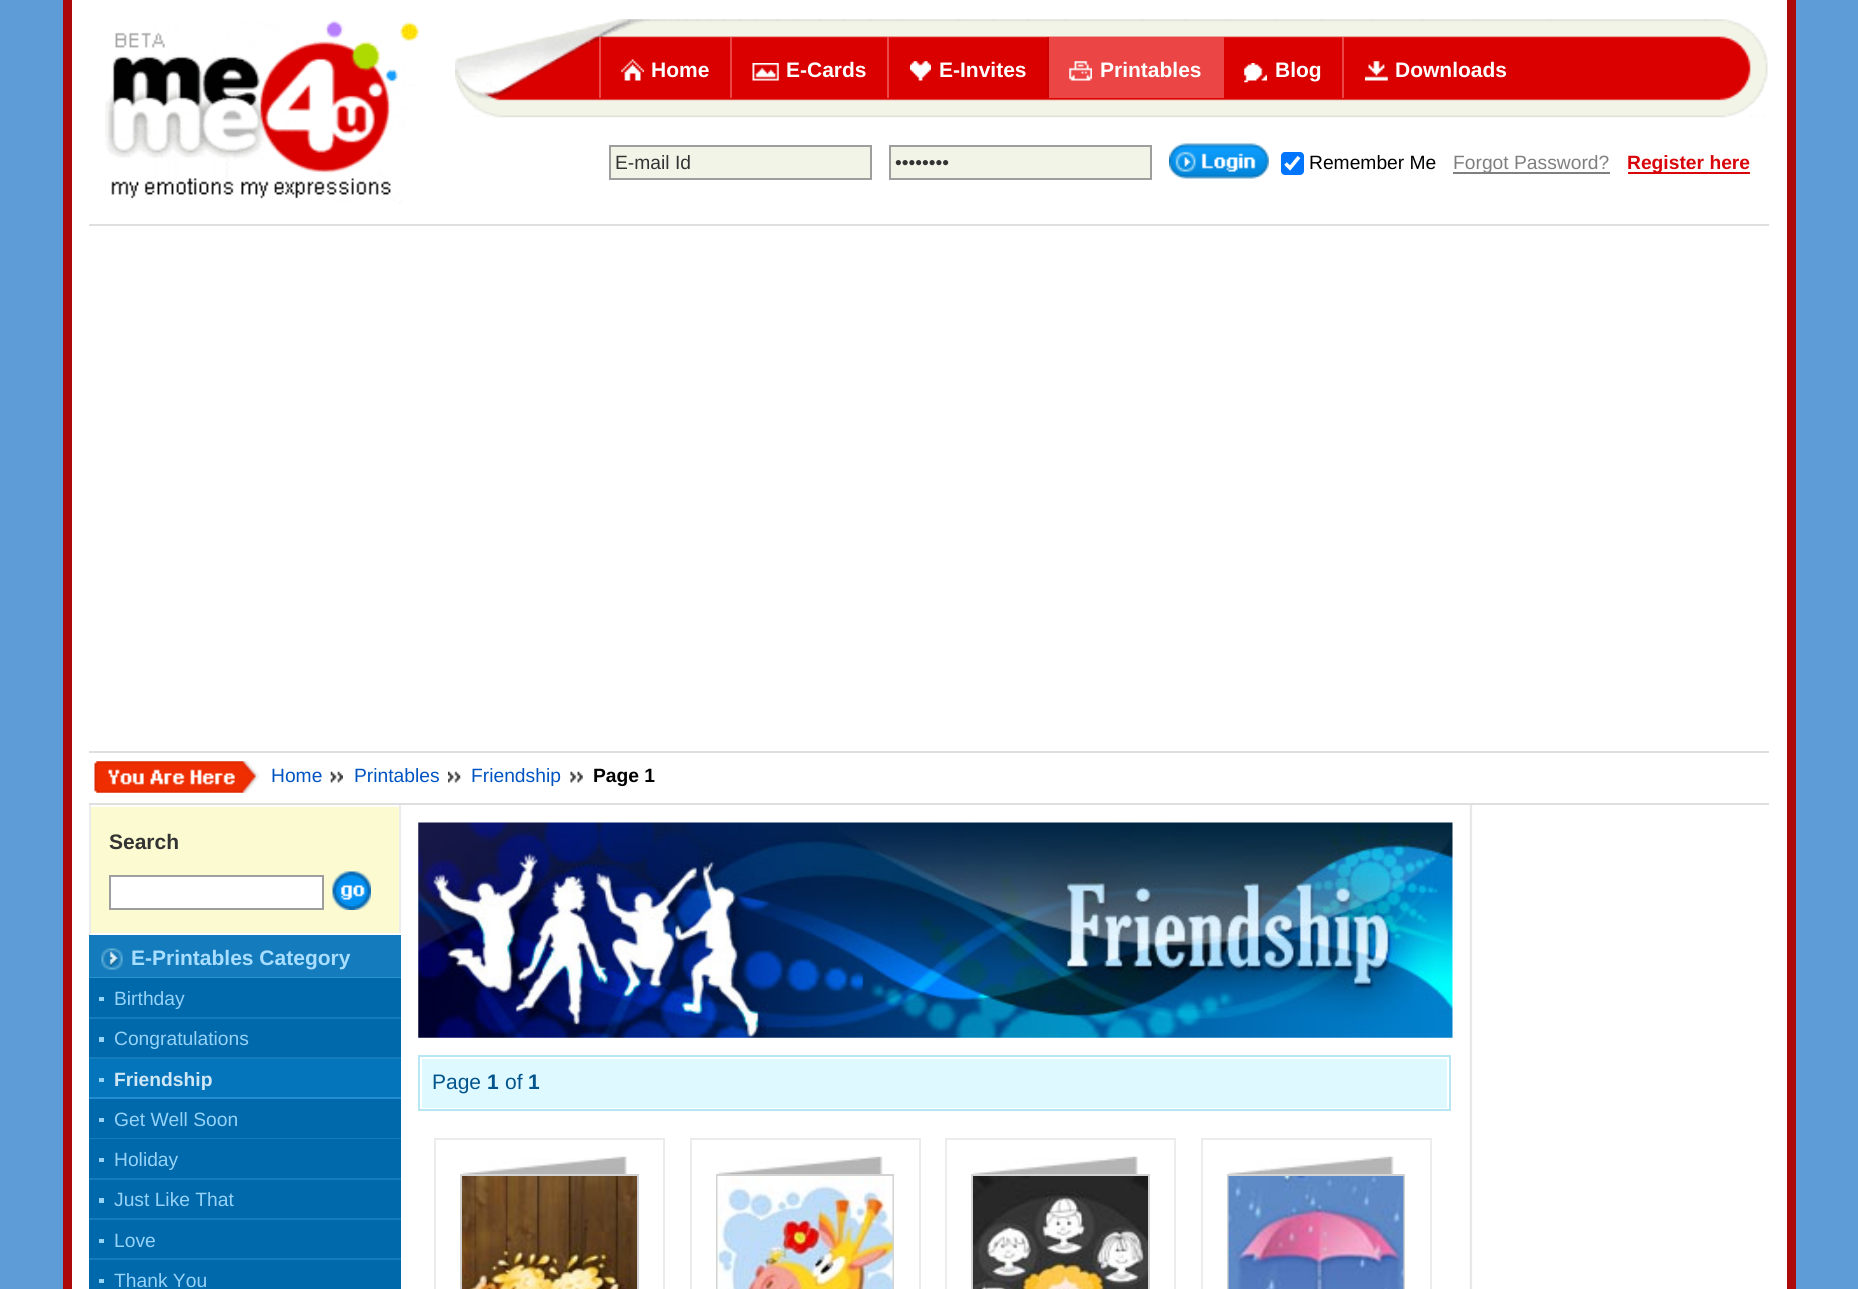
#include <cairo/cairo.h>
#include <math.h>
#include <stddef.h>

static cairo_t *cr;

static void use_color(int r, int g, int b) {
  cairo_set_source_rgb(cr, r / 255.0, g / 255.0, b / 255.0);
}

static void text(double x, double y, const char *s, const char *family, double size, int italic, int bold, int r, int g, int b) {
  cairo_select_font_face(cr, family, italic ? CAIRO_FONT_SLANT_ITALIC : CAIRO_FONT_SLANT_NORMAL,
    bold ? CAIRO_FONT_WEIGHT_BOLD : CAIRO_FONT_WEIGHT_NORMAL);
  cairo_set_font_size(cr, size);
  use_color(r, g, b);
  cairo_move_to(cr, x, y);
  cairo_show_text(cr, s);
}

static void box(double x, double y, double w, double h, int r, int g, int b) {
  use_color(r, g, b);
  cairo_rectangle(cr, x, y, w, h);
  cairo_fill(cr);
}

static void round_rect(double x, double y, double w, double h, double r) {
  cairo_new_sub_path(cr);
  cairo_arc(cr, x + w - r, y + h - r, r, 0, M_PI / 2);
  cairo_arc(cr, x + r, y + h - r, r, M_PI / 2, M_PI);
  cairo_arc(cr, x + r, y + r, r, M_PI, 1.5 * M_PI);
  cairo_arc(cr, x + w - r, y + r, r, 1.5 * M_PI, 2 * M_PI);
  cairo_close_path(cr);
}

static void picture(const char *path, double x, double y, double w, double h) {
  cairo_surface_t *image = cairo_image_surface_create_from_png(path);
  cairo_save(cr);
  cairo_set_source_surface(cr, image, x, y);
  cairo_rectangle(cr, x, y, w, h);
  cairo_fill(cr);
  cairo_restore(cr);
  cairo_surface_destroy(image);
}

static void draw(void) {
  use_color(94, 156, 215);
  cairo_paint(cr);
  box(72, 0, 1715, 1289, 255, 255, 255);
  box(1787, 0, 9, 1289, 172, 9, 10);
  box(63, 0, 9, 1289, 172, 9, 10);
  picture("img_01.png", 105, 20, 315, 184);
  picture("img_02.png", 455, 19, 1313, 99);
  box(599, 37, 2, 61, 235, 69, 69);
  picture("img_03.png", 621, 59, 23, 22);
  box(730, 37, 2, 61, 235, 69, 69);
  picture("img_04.png", 752, 63, 27, 18);
  box(887, 37, 2, 61, 235, 69, 69);
  picture("img_05.png", 910, 61, 21, 20);
  box(1049, 37, 175, 61, 235, 69, 69);
  box(1047, 37, 2, 61, 206, 0, 0);
  picture("img_06.png", 1069, 61, 23, 20);
  picture("img_07.png", 1244, 63, 23, 20);
  box(1342, 37, 2, 61, 235, 69, 69);
  picture("img_08.png", 1365, 61, 23, 20);
  use_color(243, 244, 232);
  cairo_rectangle(cr, 610, 146, 261, 33);
  cairo_fill_preserve(cr);
  use_color(158, 158, 158);
  cairo_stroke(cr);
  use_color(243, 244, 232);
  cairo_rectangle(cr, 890, 146, 261, 33);
  cairo_fill_preserve(cr);
  use_color(158, 158, 158);
  cairo_stroke(cr);
  picture("img_09.png", 1169, 143, 100, 36);
  use_color(0, 117, 255);
  round_rect(1281, 152, 23, 23, 4);
  cairo_fill(cr);
  cairo_new_path(cr);
  cairo_move_to(cr, 1285.5, 163.5);
  cairo_line_to(cr, 1290, 168);
  cairo_line_to(cr, 1299, 157);
  use_color(255, 255, 255);
  cairo_set_line_width(cr, 3.6);
  cairo_stroke(cr);
  box(1453, 172, 157, 2, 127, 127, 127);
  box(1628, 172, 122, 2, 216, 6, 10);
  box(89, 224, 1680, 2, 223, 223, 223);
  box(89, 751, 1680, 2, 223, 223, 223);
  box(89, 803, 1680, 2, 223, 223, 223);
  picture("img_10.png", 94, 761, 166, 32);
  picture("img_11.png", 330, 771, 13, 12);
  picture("img_12.png", 448, 771, 13, 12);
  picture("img_13.png", 570, 771, 13, 12);
  picture("img_14.png", 401, 805, 1072, 484);
  box(91, 807, 308, 126, 252, 250, 209);
  box(399, 805, 2, 130, 236, 236, 236);
  box(399, 933, 2, 2, 255, 255, 255);
  box(89, 805, 2, 130, 236, 236, 236);
  use_color(255, 255, 255);
  cairo_rectangle(cr, 110, 876, 213, 33);
  cairo_fill_preserve(cr);
  use_color(158, 158, 158);
  cairo_set_line_width(cr, 2);
  cairo_stroke(cr);
  picture("img_15.png", 332, 871, 39, 39);
  box(89, 935, 312, 42, 20, 123, 188);
  box(89, 977, 312, 1, 39, 150, 204);
  picture("img_16.png", 101, 948, 22, 22);
  box(89, 1017, 312, 2, 20, 123, 188);
  box(89, 978, 312, 39, 0, 105, 171);
  box(99, 997, 5, 4, 149, 211, 249);
  box(89, 1057, 312, 2, 20, 123, 188);
  box(89, 1019, 312, 38, 0, 105, 171);
  box(99, 1037, 5, 5, 149, 211, 249);
  box(89, 1097, 312, 2, 37, 141, 207);
  box(89, 1059, 312, 38, 5, 117, 187);
  box(99, 1078, 5, 4, 149, 211, 249);
  box(89, 1138, 312, 1, 20, 123, 188);
  box(89, 1099, 312, 39, 0, 105, 171);
  box(99, 1118, 5, 4, 149, 211, 249);
  box(89, 1178, 312, 2, 20, 123, 188);
  box(89, 1139, 312, 39, 0, 105, 171);
  box(99, 1158, 5, 4, 149, 211, 249);
  box(89, 1218, 312, 2, 20, 123, 188);
  box(89, 1180, 312, 38, 0, 105, 171);
  box(99, 1198, 5, 5, 149, 211, 249);
  box(89, 1258, 312, 2, 20, 123, 188);
  box(89, 1220, 312, 38, 0, 105, 171);
  box(99, 1239, 5, 4, 149, 211, 249);
  box(89, 1260, 312, 29, 0, 105, 171);
  box(99, 1279, 5, 4, 149, 211, 249);
  picture("img_17.png", 418, 822, 1035, 216);
  cairo_rectangle(cr, 419, 1056, 1031, 54);
  use_color(182, 231, 242);
  cairo_stroke(cr);
  box(422, 1059, 1025, 49, 222, 249, 255);
  cairo_rectangle(cr, 435, 1139, 229, 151);
  use_color(236, 236, 236);
  cairo_stroke(cr);
  picture("img_18.png", 462, 1156, 165, 18);
  cairo_rectangle(cr, 461, 1175, 177, 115);
  use_color(211, 211, 211);
  cairo_stroke(cr);
  picture("img_19.png", 462, 1176, 175, 113);
  cairo_rectangle(cr, 691, 1139, 229, 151);
  use_color(236, 236, 236);
  cairo_stroke(cr);
  picture("img_20.png", 717, 1156, 166, 18);
  cairo_rectangle(cr, 717, 1175, 176, 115);
  use_color(211, 211, 211);
  cairo_stroke(cr);
  picture("img_21.png", 717, 1176, 176, 113);
  cairo_rectangle(cr, 946, 1139, 229, 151);
  use_color(236, 236, 236);
  cairo_stroke(cr);
  picture("img_18.png", 973, 1156, 165, 18);
  cairo_rectangle(cr, 972, 1175, 177, 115);
  use_color(211, 211, 211);
  cairo_stroke(cr);
  picture("img_22.png", 973, 1176, 175, 113);
  cairo_rectangle(cr, 1202, 1139, 229, 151);
  use_color(236, 236, 236);
  cairo_stroke(cr);
  picture("img_23.png", 1228, 1156, 166, 18);
  cairo_rectangle(cr, 1228, 1175, 176, 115);
  use_color(211, 211, 211);
  cairo_stroke(cr);
  picture("img_24.png", 1228, 1176, 176, 113);
  text(651, 77, "Home", "Liberation Sans", 21, 0, 1, 255, 255, 255);
  text(786, 77, "E-Cards", "Liberation Sans", 21, 0, 1, 255, 255, 255);
  text(939, 77, "E-Invites", "Liberation Sans", 21, 0, 1, 255, 255, 255);
  text(1100, 77, "Printables", "Liberation Sans", 21, 0, 1, 255, 255, 255);
  text(1275, 77, "Blog", "Liberation Sans", 21, 0, 1, 255, 255, 255);
  text(1395, 77, "Downloads", "Liberation Sans", 21, 0, 1, 255, 255, 255);
  text(615, 169, "E-mail Id", "Liberation Sans", 19.25, 0, 0, 51, 51, 51);
  text(895, 169, "••••••••", "Liberation Sans", 19.25, 0, 0, 51, 51, 51);
  text(1309, 169, "Remember Me", "Liberation Sans", 19.25, 0, 0, 0, 0, 0);
  text(1453, 169, "Forgot Password?", "Liberation Sans", 19.25, 0, 0, 127, 127, 127);
  text(1627, 169, "Register here", "Liberation Sans", 19.25, 0, 1, 216, 6, 10);
  text(271, 782, "Home", "Liberation Sans", 19.25, 0, 0, 0, 84, 194);
  text(354, 782, "Printables", "Liberation Sans", 19.25, 0, 0, 0, 84, 194);
  text(471, 782, "Friendship", "Liberation Sans", 19.25, 0, 0, 0, 84, 194);
  text(593, 782, "Page 1", "Liberation Sans", 19.25, 0, 1, 0, 0, 0);
  text(109, 849, "Search", "Liberation Sans", 21, 0, 1, 51, 51, 51);
  text(131, 965, "E-Printables Category", "Liberation Sans", 21, 0, 1, 167, 222, 255);
  text(114, 1005, "Birthday", "Liberation Sans", 19.25, 0, 0, 149, 211, 249);
  text(114, 1045, "Congratulations", "Liberation Sans", 19.25, 0, 0, 149, 211, 249);
  text(114, 1086, "Friendship", "Liberation Sans", 19.25, 0, 1, 208, 232, 246);
  text(114, 1126, "Get Well Soon", "Liberation Sans", 19.25, 0, 0, 149, 211, 249);
  text(114, 1166, "Holiday", "Liberation Sans", 19.25, 0, 0, 149, 211, 249);
  text(114, 1206, "Just Like That", "Liberation Sans", 19.25, 0, 0, 149, 211, 249);
  text(114, 1247, "Love", "Liberation Sans", 19.25, 0, 0, 149, 211, 249);
  text(114, 1287, "Thank You", "Liberation Sans", 19.25, 0, 0, 149, 211, 249);
  text(432, 1089, "Page", "Liberation Sans", 21, 0, 0, 2, 84, 140);
  text(487, 1089, "1", "Liberation Sans", 21, 0, 1, 2, 84, 140);
  text(505, 1089, "of", "Liberation Sans", 21, 0, 0, 2, 84, 140);
  text(528, 1089, "1", "Liberation Sans", 21, 0, 1, 2, 84, 140);
}

int main(void) {
  cairo_surface_t *surface = cairo_image_surface_create(CAIRO_FORMAT_RGB24, 1858, 1289);
  cr = cairo_create(surface);
  cairo_font_options_t *options = cairo_font_options_create();
  cairo_font_options_set_hint_metrics(options, CAIRO_HINT_METRICS_OFF);
  cairo_font_options_set_hint_style(options, CAIRO_HINT_STYLE_NONE);
  cairo_set_font_options(cr, options);
  cairo_set_miter_limit(cr, 4);
  draw();
  cairo_surface_write_to_png(surface, "out.png");
  cairo_font_options_destroy(options);
  cairo_destroy(cr);
  cairo_surface_destroy(surface);
  return 0;
}
